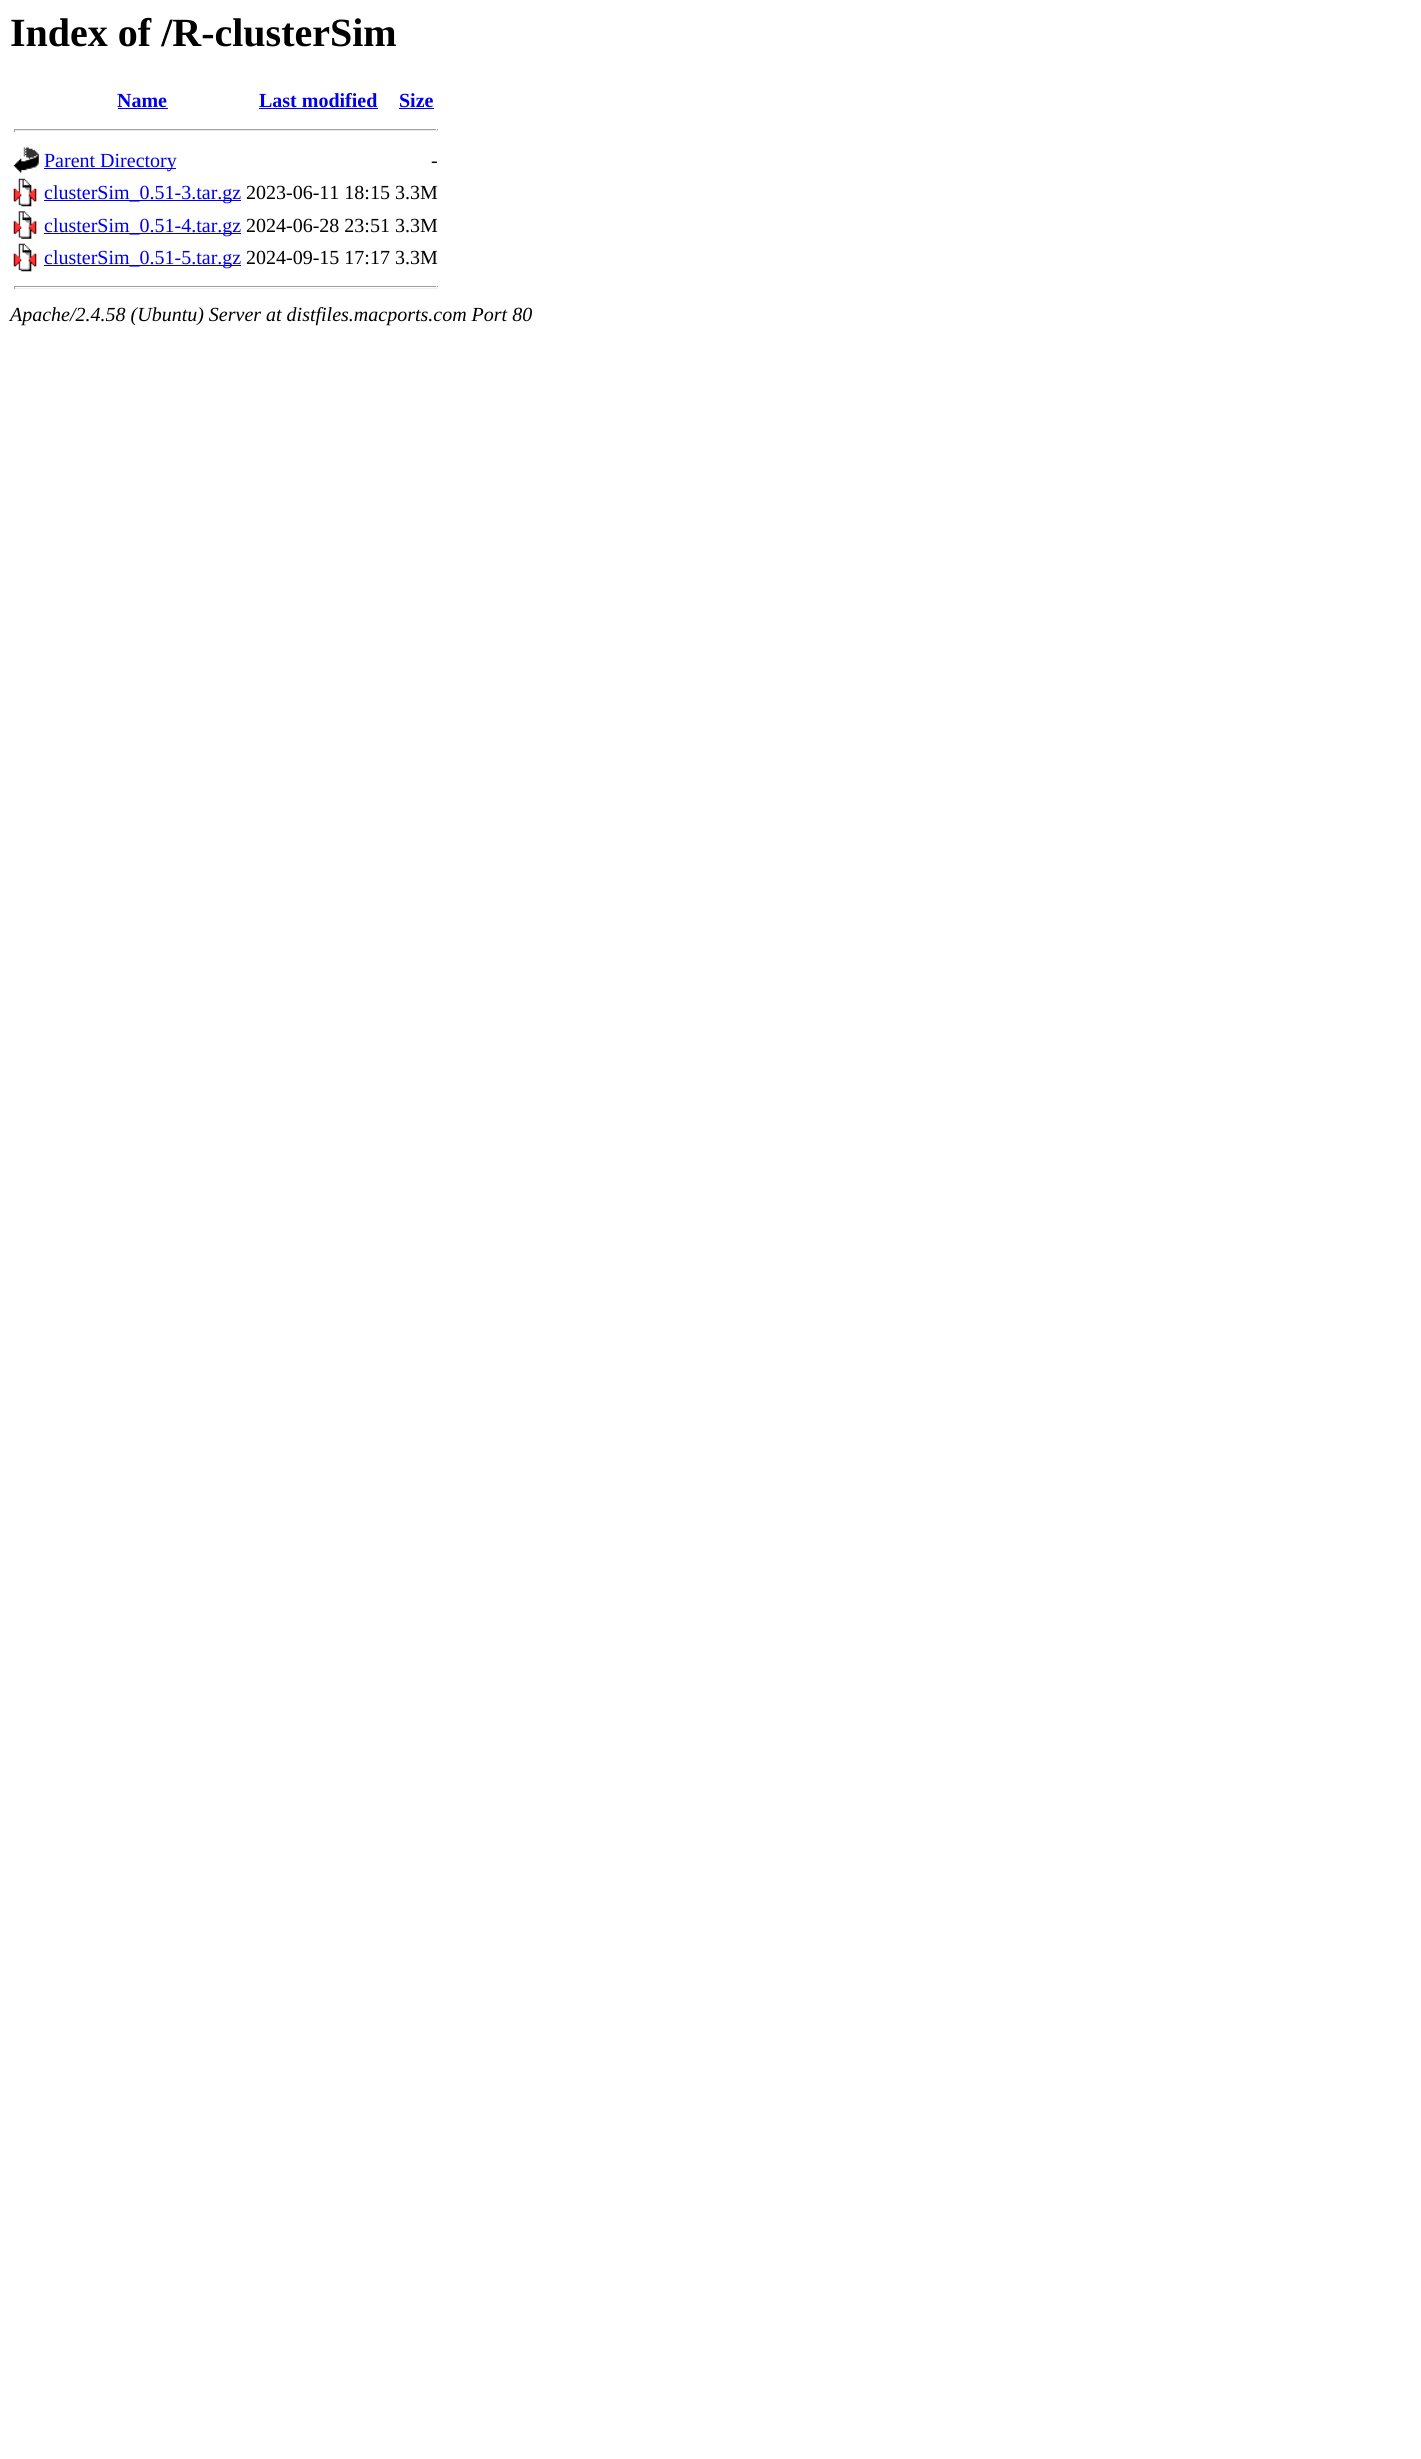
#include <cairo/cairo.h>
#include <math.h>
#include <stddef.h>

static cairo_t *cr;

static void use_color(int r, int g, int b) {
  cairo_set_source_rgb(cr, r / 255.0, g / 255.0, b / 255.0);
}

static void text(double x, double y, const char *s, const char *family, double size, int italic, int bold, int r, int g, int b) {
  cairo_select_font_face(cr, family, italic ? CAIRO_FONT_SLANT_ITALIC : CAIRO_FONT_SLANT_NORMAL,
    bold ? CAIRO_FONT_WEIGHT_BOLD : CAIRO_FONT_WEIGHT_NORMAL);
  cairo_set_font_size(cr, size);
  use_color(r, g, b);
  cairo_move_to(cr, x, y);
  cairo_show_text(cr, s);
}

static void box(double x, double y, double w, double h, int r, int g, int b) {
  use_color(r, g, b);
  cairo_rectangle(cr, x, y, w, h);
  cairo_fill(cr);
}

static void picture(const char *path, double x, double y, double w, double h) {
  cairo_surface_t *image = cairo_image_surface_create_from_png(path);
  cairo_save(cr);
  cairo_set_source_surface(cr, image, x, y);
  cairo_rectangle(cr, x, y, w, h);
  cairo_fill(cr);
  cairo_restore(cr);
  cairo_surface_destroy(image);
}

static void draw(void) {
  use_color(255, 255, 255);
  cairo_paint(cr);
  box(118, 108, 50, 1, 0, 0, 238);
  box(259, 108, 119, 1, 0, 0, 238);
  box(399, 108, 35, 1, 0, 0, 238);
  box(14, 129, 424, 1, 159, 159, 159);
  box(436, 129, 1, 3, 238, 238, 238);
  box(14, 130, 424, 1, 238, 238, 238);
  box(14, 129, 1, 3, 159, 159, 159);
  picture("img_01.png", 13, 147, 26, 26);
  box(44, 168, 132, 1, 0, 0, 238);
  picture("img_02.png", 13, 178, 24, 29);
  box(44, 200, 197, 1, 0, 0, 238);
  picture("img_03.png", 13, 211, 24, 28);
  box(44, 233, 197, 1, 0, 0, 238);
  picture("img_02.png", 13, 243, 24, 29);
  box(44, 265, 197, 1, 0, 0, 238);
  box(14, 286, 424, 1, 159, 159, 159);
  box(436, 286, 1, 3, 238, 238, 238);
  box(14, 288, 424, 1, 238, 238, 238);
  box(14, 286, 1, 3, 159, 159, 159);
  text(10, 46, "Index of /R-clusterSim", "Liberation Serif", 40, 0, 1, 0, 0, 0);
  text(117, 107, "Name", "Liberation Serif", 20, 0, 1, 0, 0, 238);
  text(259, 107, "Last modified", "Liberation Serif", 20, 0, 1, 0, 0, 238);
  text(399, 107, "Size", "Liberation Serif", 20, 0, 1, 0, 0, 238);
  text(44, 167, "Parent Directory", "Liberation Serif", 20, 0, 0, 0, 0, 238);
  text(431, 167, "-", "Liberation Serif", 20, 0, 0, 0, 0, 0);
  text(44, 199, "clusterSim_0.51-3.tar.gz", "Liberation Serif", 20, 0, 0, 0, 0, 238);
  text(246, 199, "2023-06-11 18:15 3.3M", "Liberation Serif", 20, 0, 0, 0, 0, 0);
  text(44, 232, "clusterSim_0.51-4.tar.gz", "Liberation Serif", 20, 0, 0, 0, 0, 238);
  text(246, 232, "2024-06-28 23:51 3.3M", "Liberation Serif", 20, 0, 0, 0, 0, 0);
  text(44, 264, "clusterSim_0.51-5.tar.gz", "Liberation Serif", 20, 0, 0, 0, 0, 238);
  text(246, 264, "2024-09-15 17:17 3.3M", "Liberation Serif", 20, 0, 0, 0, 0, 0);
  text(10, 321, "Apache/2.4.58 (Ubuntu) Server at distfiles.macports.com Port 80", "Liberation Serif", 20, 1, 0, 0, 0, 0);
}

int main(void) {
  cairo_surface_t *surface = cairo_image_surface_create(CAIRO_FORMAT_RGB24, 1421, 2459);
  cr = cairo_create(surface);
  cairo_font_options_t *options = cairo_font_options_create();
  cairo_font_options_set_hint_metrics(options, CAIRO_HINT_METRICS_OFF);
  cairo_font_options_set_hint_style(options, CAIRO_HINT_STYLE_NONE);
  cairo_set_font_options(cr, options);
  cairo_set_miter_limit(cr, 4);
  draw();
  cairo_surface_write_to_png(surface, "out.png");
  cairo_font_options_destroy(options);
  cairo_destroy(cr);
  cairo_surface_destroy(surface);
  return 0;
}
